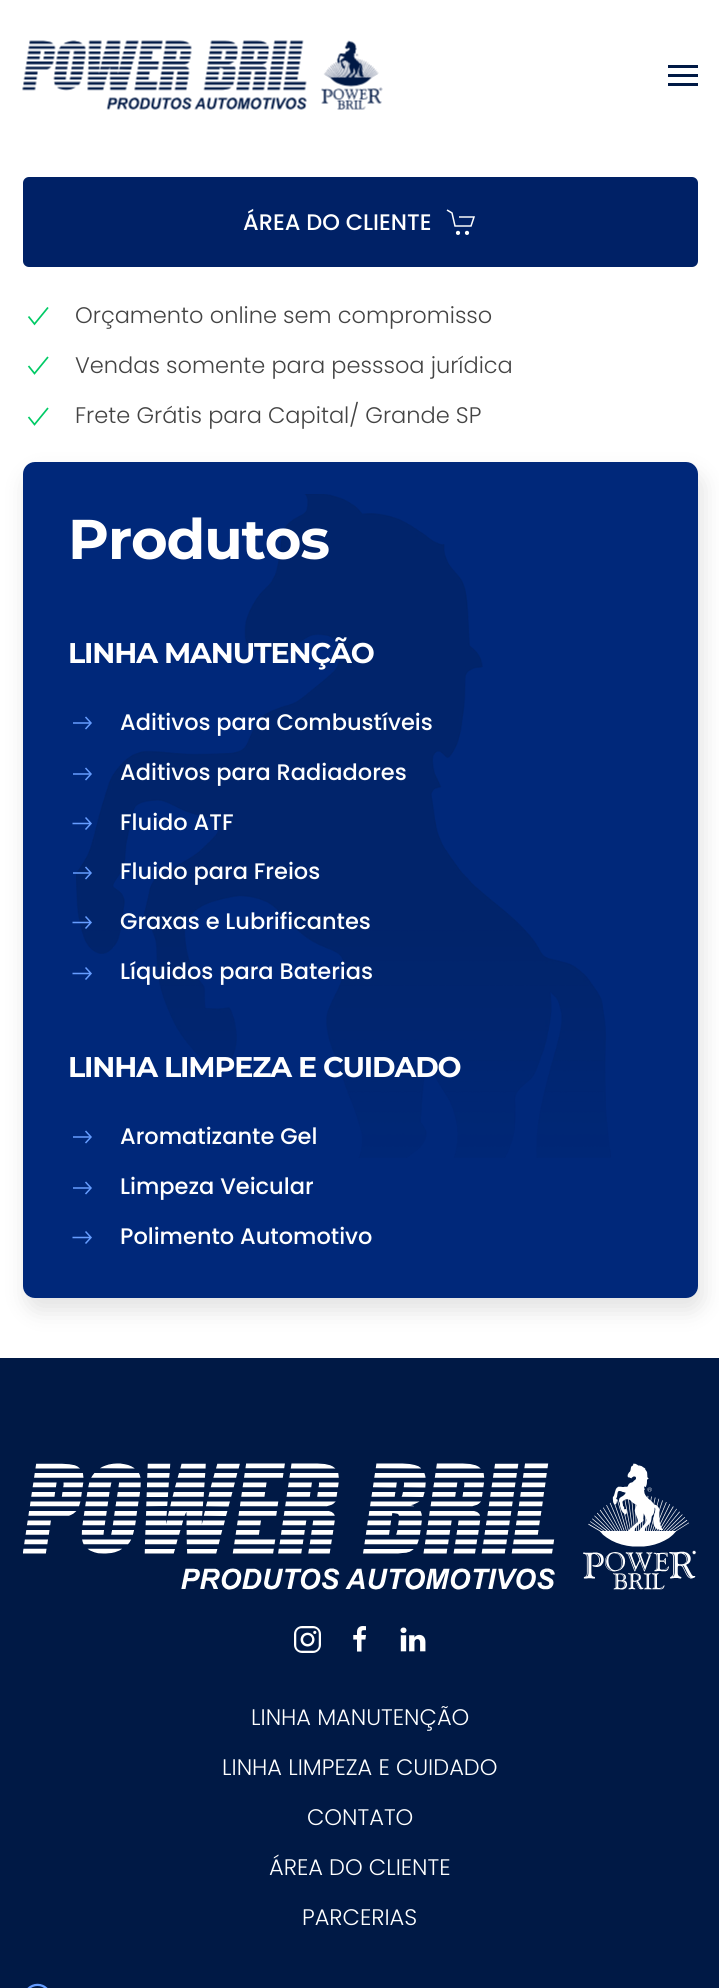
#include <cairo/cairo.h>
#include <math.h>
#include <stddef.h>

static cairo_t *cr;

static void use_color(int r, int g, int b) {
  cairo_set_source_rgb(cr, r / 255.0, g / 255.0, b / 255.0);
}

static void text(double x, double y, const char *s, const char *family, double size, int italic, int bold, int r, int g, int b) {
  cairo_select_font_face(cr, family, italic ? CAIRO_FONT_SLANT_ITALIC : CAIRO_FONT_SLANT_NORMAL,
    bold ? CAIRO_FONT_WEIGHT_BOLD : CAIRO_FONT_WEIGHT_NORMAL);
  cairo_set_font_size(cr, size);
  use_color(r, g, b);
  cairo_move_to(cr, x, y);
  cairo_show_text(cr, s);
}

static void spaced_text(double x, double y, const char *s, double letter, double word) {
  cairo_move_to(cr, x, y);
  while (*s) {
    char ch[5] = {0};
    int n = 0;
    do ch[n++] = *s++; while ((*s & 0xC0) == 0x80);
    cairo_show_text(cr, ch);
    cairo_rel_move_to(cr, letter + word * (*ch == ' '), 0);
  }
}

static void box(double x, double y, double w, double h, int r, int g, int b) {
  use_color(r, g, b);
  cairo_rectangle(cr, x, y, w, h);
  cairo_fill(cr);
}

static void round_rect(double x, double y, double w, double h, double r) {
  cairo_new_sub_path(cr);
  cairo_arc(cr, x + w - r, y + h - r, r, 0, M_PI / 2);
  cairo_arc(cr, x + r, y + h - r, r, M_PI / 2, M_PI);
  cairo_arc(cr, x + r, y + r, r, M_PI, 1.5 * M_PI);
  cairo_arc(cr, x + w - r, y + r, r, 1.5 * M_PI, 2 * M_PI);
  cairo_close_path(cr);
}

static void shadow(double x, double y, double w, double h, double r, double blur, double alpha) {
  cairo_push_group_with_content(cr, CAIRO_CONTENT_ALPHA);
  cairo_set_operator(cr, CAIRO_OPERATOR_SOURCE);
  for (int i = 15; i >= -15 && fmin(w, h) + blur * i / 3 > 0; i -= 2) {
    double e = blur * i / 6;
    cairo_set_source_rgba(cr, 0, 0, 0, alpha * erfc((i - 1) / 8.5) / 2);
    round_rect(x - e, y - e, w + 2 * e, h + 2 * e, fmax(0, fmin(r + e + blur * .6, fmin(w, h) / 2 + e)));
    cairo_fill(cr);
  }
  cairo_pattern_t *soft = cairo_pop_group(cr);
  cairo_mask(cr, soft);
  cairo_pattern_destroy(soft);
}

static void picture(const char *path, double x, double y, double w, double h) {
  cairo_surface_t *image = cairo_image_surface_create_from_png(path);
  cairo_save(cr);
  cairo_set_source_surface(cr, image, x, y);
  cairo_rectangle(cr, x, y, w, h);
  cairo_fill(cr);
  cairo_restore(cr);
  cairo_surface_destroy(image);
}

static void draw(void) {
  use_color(255, 255, 255);
  cairo_paint(cr);
  picture("img_01.png", 22, 40, 361, 70);
  box(668, 65, 30, 3, 0, 25, 69);
  box(668, 74, 30, 3, 0, 25, 69);
  box(668, 83, 30, 3, 0, 25, 69);
  use_color(0, 33, 102);
  round_rect(23, 177, 675, 90, 6);
  cairo_fill(cr);
  cairo_new_path(cr);
  cairo_move_to(cr, 447, 210);
  cairo_line_to(cr, 452, 213);
  cairo_line_to(cr, 455, 226);
  cairo_line_to(cr, 471, 226);
  cairo_line_to(cr, 474, 217);
  cairo_line_to(cr, 459, 217);
  use_color(255, 255, 255);
  cairo_set_line_width(cr, 1.5);
  cairo_stroke(cr);
  cairo_arc(cr, 458, 232.9, 2.1, 0, 2 * M_PI);
  cairo_fill(cr);
  cairo_arc(cr, 467, 232.9, 2.1, 0, 2 * M_PI);
  cairo_fill(cr);
  cairo_new_path(cr);
  cairo_move_to(cr, 28.5, 316.5);
  cairo_line_to(cr, 34.5, 324);
  cairo_line_to(cr, 48, 307.5);
  use_color(0, 202, 101);
  cairo_set_line_width(cr, 1.7);
  cairo_stroke(cr);
  cairo_new_path(cr);
  cairo_move_to(cr, 28.5, 366);
  cairo_line_to(cr, 34.5, 373.5);
  cairo_line_to(cr, 48, 357);
  cairo_stroke(cr);
  cairo_new_path(cr);
  cairo_move_to(cr, 28.5, 417);
  cairo_line_to(cr, 34.5, 424.5);
  cairo_line_to(cr, 48, 408);
  cairo_stroke(cr);
  use_color(0, 0, 0);
  shadow(27, 474, 675, 836, 12, 12, 0.12);
  use_color(0, 40, 122);
  round_rect(23, 462, 675, 836, 12);
  cairo_fill(cr);
  picture("img_02.png", 76, 494, 535, 664);
  box(73, 722, 18, 2, 77, 128, 222);
  cairo_new_path(cr);
  cairo_move_to(cr, 85.5, 729);
  cairo_line_to(cr, 91, 723);
  cairo_line_to(cr, 85.5, 717);
  use_color(102, 157, 255);
  cairo_set_line_width(cr, 1.5);
  cairo_stroke(cr);
  box(73, 773, 18, 2, 77, 128, 222);
  cairo_new_path(cr);
  cairo_move_to(cr, 85.5, 780);
  cairo_line_to(cr, 91, 774);
  cairo_line_to(cr, 85.5, 768);
  use_color(102, 157, 255);
  cairo_stroke(cr);
  cairo_new_path(cr);
  cairo_move_to(cr, 72.5, 823.5);
  cairo_line_to(cr, 90.5, 823.5);
  cairo_move_to(cr, 85.5, 829.5);
  cairo_line_to(cr, 91, 823.5);
  cairo_line_to(cr, 85.5, 817.5);
  cairo_stroke(cr);
  cairo_set_source_rgba(cr, 0.4, 0.616, 1, 0.75);
  cairo_rectangle(cr, 73, 872, 18, 2);
  cairo_fill(cr);
  cairo_new_path(cr);
  cairo_move_to(cr, 85.5, 879);
  cairo_line_to(cr, 91, 873);
  cairo_line_to(cr, 85.5, 867);
  use_color(102, 157, 255);
  cairo_stroke(cr);
  cairo_new_path(cr);
  cairo_move_to(cr, 72.5, 922.5);
  cairo_line_to(cr, 90.5, 922.5);
  cairo_move_to(cr, 85.5, 928.5);
  cairo_line_to(cr, 91, 922.5);
  cairo_line_to(cr, 85.5, 916.5);
  cairo_stroke(cr);
  cairo_new_path(cr);
  cairo_move_to(cr, 72.5, 973.5);
  cairo_line_to(cr, 90.5, 973.5);
  cairo_move_to(cr, 85.5, 979.5);
  cairo_line_to(cr, 91, 973.5);
  cairo_line_to(cr, 85.5, 967.5);
  cairo_stroke(cr);
  box(73, 1136, 18, 2, 77, 128, 222);
  cairo_new_path(cr);
  cairo_move_to(cr, 85.5, 1143);
  cairo_line_to(cr, 91, 1137);
  cairo_line_to(cr, 85.5, 1131);
  use_color(102, 157, 255);
  cairo_stroke(cr);
  box(73, 1187, 18, 2, 77, 128, 222);
  cairo_new_path(cr);
  cairo_move_to(cr, 85.5, 1194);
  cairo_line_to(cr, 91, 1188);
  cairo_line_to(cr, 85.5, 1182);
  use_color(102, 157, 255);
  cairo_stroke(cr);
  cairo_new_path(cr);
  cairo_move_to(cr, 72.5, 1237.5);
  cairo_line_to(cr, 90.5, 1237.5);
  cairo_move_to(cr, 85.5, 1243.5);
  cairo_line_to(cr, 91, 1237.5);
  cairo_line_to(cr, 85.5, 1231.5);
  cairo_stroke(cr);
  box(0, 1358, 719, 630, 0, 25, 69);
  picture("img_03.png", 23, 1463, 674, 127);
  picture("img_04.png", 294, 1626, 27, 27);
  picture("img_05.png", 353, 1626, 13, 26);
  picture("img_06.png", 400, 1627, 26, 25);
  picture("img_07.png", 27, 1983, 21, 5);
  text(243, 230, "ÁREA DO CLIENTE", "Poppins Medium", 22.5, 0, 0, 255, 255, 255);
  text(75, 323, "Orçamento online sem compromisso", "Poppins Light", 22.5, 0, 0, 68, 68, 68);
  text(75, 373, "Vendas somente para pesssoa jurídica", "Poppins Light", 22.5, 0, 0, 68, 68, 68);
  text(75, 423, "Frete Grátis para Capital/ Grande SP", "Poppins Light", 22.5, 0, 0, 68, 68, 68);
  cairo_select_font_face(cr, "Montserrat Thin", CAIRO_FONT_SLANT_NORMAL, CAIRO_FONT_WEIGHT_NORMAL);
  cairo_set_font_size(cr, 56);
  use_color(255, 255, 255);
  spaced_text(68, 559, "Produtos", -1.1, 0);
  cairo_set_font_size(cr, 28.5);
  spaced_text(68, 663, "LINHA MANUTENÇÃO", -1.1, 0);
  text(120, 730, "Aditivos para Combustíveis", "Poppins Medium", 22.5, 0, 0, 255, 255, 255);
  text(120, 780, "Aditivos para Radiadores", "Poppins Medium", 22.5, 0, 0, 255, 255, 255);
  text(120, 830, "Fluido ATF", "Poppins Medium", 22.5, 0, 0, 255, 255, 255);
  text(120, 879, "Fluido para Freios", "Poppins Medium", 22.5, 0, 0, 255, 255, 255);
  text(120, 929, "Graxas e Lubrificantes", "Poppins Medium", 22.5, 0, 0, 255, 255, 255);
  text(120, 979, "Líquidos para Baterias", "Poppins Medium", 22.5, 0, 0, 255, 255, 255);
  cairo_select_font_face(cr, "Montserrat Thin", CAIRO_FONT_SLANT_NORMAL, CAIRO_FONT_WEIGHT_NORMAL);
  cairo_set_font_size(cr, 28.5);
  spaced_text(68, 1077, "LINHA LIMPEZA E CUIDADO", -1.1, 0);
  text(120, 1144, "Aromatizante Gel", "Poppins Medium", 22.5, 0, 0, 255, 255, 255);
  text(120, 1194, "Limpeza Veicular", "Poppins Medium", 22.5, 0, 0, 255, 255, 255);
  text(120, 1244, "Polimento Automotivo", "Poppins Medium", 22.5, 0, 0, 255, 255, 255);
  text(251, 1725, "LINHA MANUTENÇÃO", "Poppins Light", 22.5, 0, 0, 255, 255, 255);
  text(222, 1775, "LINHA LIMPEZA E CUIDADO", "Poppins Light", 22.5, 0, 0, 255, 255, 255);
  text(307, 1825, "CONTATO", "Poppins Light", 22.5, 0, 0, 255, 255, 255);
  text(269, 1875, "ÁREA DO CLIENTE", "Poppins Light", 22.5, 0, 0, 255, 255, 255);
  text(302, 1925, "PARCERIAS", "Poppins Light", 22.5, 0, 0, 255, 255, 255);
}

int main(void) {
  cairo_surface_t *surface = cairo_image_surface_create(CAIRO_FORMAT_RGB24, 719, 1988);
  cr = cairo_create(surface);
  cairo_font_options_t *options = cairo_font_options_create();
  cairo_font_options_set_hint_metrics(options, CAIRO_HINT_METRICS_OFF);
  cairo_font_options_set_hint_style(options, CAIRO_HINT_STYLE_NONE);
  cairo_set_font_options(cr, options);
  cairo_set_miter_limit(cr, 4);
  draw();
  cairo_surface_write_to_png(surface, "out.png");
  cairo_font_options_destroy(options);
  cairo_destroy(cr);
  cairo_surface_destroy(surface);
  return 0;
}
